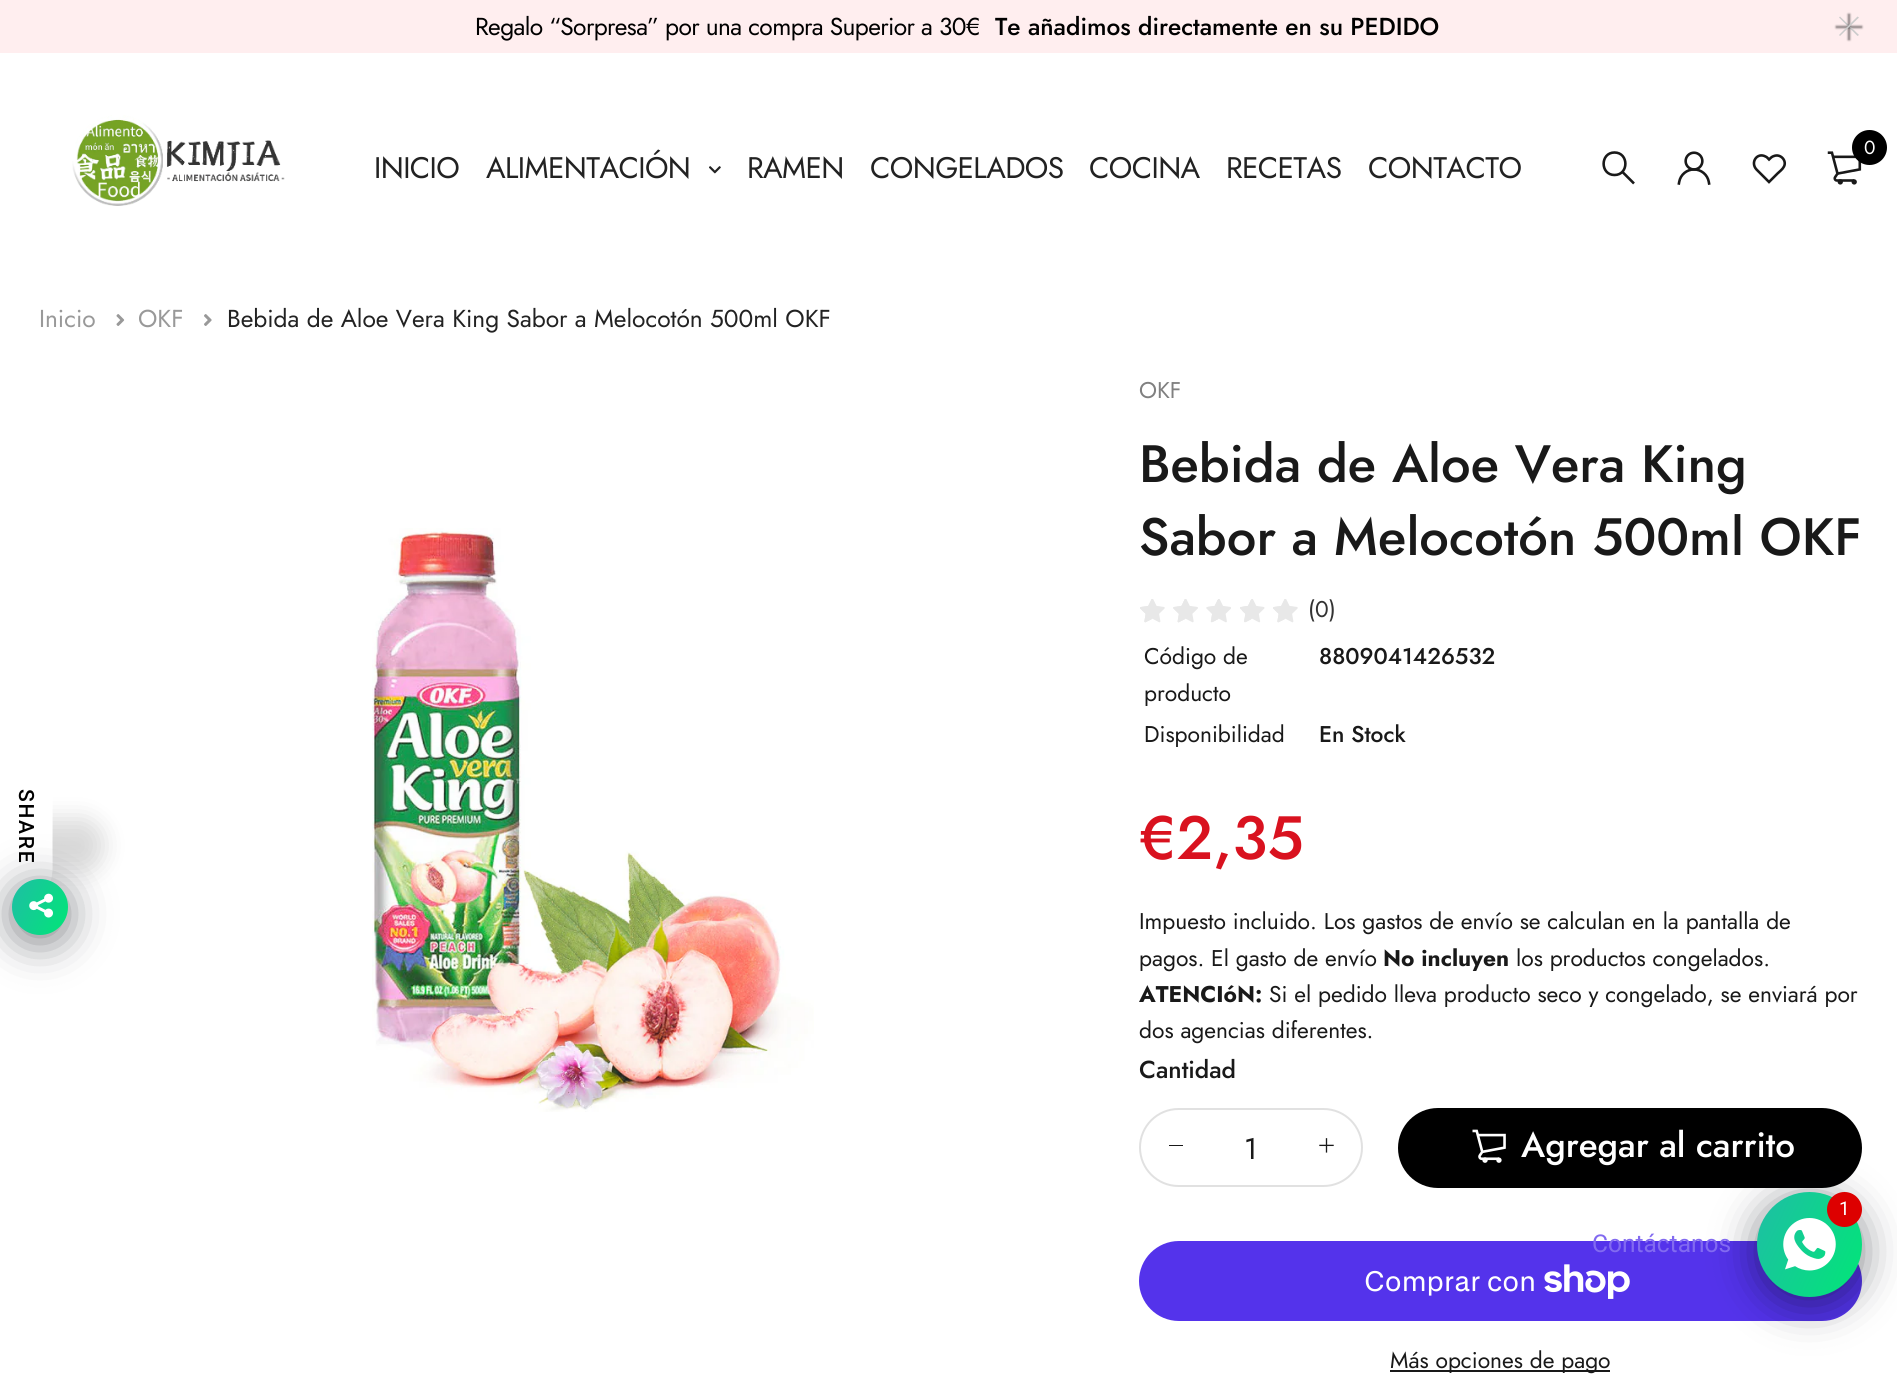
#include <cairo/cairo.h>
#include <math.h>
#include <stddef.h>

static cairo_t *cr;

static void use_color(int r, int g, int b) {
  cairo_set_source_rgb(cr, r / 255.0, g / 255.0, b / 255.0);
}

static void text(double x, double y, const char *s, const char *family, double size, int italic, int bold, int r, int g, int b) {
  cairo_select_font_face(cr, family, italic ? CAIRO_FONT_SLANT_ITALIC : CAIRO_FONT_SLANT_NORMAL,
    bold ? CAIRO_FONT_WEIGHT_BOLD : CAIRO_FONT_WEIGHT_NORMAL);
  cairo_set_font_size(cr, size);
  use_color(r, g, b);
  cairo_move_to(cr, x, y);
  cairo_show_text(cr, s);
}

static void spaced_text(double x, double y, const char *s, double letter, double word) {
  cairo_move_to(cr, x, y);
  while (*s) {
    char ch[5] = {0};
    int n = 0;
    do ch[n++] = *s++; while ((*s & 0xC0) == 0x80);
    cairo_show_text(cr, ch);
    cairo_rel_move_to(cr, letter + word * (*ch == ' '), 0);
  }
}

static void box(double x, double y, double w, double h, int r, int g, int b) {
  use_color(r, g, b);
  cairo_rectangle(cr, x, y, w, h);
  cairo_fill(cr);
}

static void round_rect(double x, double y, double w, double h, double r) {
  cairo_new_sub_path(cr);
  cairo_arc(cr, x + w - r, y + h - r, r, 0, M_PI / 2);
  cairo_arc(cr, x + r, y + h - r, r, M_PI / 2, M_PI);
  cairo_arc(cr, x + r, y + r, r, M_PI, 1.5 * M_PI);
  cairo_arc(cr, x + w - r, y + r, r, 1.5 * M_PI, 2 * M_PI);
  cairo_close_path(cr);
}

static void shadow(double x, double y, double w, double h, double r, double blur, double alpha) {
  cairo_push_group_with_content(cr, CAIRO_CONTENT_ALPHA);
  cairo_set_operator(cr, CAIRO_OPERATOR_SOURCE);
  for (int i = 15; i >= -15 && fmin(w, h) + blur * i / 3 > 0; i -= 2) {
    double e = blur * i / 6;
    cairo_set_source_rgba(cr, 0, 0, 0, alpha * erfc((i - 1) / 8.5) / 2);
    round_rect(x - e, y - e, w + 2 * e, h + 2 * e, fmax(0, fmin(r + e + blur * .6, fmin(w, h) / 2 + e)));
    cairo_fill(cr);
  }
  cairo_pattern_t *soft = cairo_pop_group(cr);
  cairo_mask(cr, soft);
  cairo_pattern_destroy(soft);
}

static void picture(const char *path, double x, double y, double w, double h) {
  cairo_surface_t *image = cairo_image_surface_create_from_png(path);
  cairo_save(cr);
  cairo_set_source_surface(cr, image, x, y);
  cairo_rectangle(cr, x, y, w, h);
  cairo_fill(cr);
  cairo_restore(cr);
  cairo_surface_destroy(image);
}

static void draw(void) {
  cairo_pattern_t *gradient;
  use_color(255, 255, 255);
  cairo_paint(cr);
  box(0, 0, 1897, 53, 255, 238, 239);
  use_color(0, 0, 0);
  shadow(1836, 26, 26, 2, 0, 1, 0.5);
  use_color(204, 204, 204);
  cairo_new_path(cr);
  cairo_move_to(cr, 1840, 16.5);
  cairo_line_to(cr, 1859, 35);
  cairo_line_to(cr, 1857.5, 36);
  cairo_line_to(cr, 1839, 17.5);
  cairo_close_path(cr);
  cairo_fill(cr);
  use_color(0, 0, 0);
  shadow(1848, 14, 2, 26, 0, 1, 0.5);
  use_color(204, 204, 204);
  cairo_new_path(cr);
  cairo_move_to(cr, 1857.5, 16.5);
  cairo_line_to(cr, 1859, 17.5);
  cairo_line_to(cr, 1840, 36);
  cairo_line_to(cr, 1839, 35);
  cairo_close_path(cr);
  cairo_fill(cr);
  picture("img_01.png", 72, 115, 213, 91);
  picture("img_02.png", 1827, 151, 35, 34);
  use_color(0, 0, 0);
  cairo_arc(cr, 1869.5, 147.5, 17.5, 0, 2 * M_PI);
  cairo_fill(cr);
  cairo_new_path(cr);
  cairo_move_to(cr, 1614.5, 175);
  cairo_curve_to(cr, 1629, 175, 1629, 152.5, 1614.5, 152.5);
  cairo_curve_to(cr, 1600, 152.5, 1600, 175, 1614.5, 175);
  cairo_close_path(cr);
  cairo_move_to(cr, 1634, 183.5);
  cairo_line_to(cr, 1622, 171.5);
  use_color(25, 25, 25);
  cairo_set_line_width(cr, 2.6);
  cairo_stroke(cr);
  picture("img_03.png", 1677, 151, 34, 34);
  cairo_new_path(cr);
  cairo_move_to(cr, 1756.5, 169.5);
  cairo_curve_to(cr, 1750, 162.5, 1757, 152, 1765.5, 156.5);
  cairo_curve_to(cr, 1767, 157, 1768, 158.5, 1769, 159.5);
  cairo_curve_to(cr, 1770.5, 158, 1772, 156.5, 1774, 156);
  cairo_curve_to(cr, 1780.5, 153.5, 1787, 160.5, 1784, 166.5);
  cairo_curve_to(cr, 1782.5, 169.5, 1779.5, 171.5, 1777.5, 173.5);
  cairo_line_to(cr, 1769, 182);
  cairo_close_path(cr);
  cairo_stroke(cr);
  picture("img_04.png", 709, 166, 12, 8);
  picture("img_05.png", 116, 314, 9, 12);
  picture("img_06.png", 204, 314, 8, 12);
  picture("img_07.png", 372, 528, 442, 584);
  picture("img_08.png", 1140, 599, 25, 24);
  picture("img_09.png", 1140, 599, 12, 24);
  picture("img_10.png", 1173, 599, 25, 24);
  picture("img_11.png", 1173, 599, 12, 24);
  picture("img_12.png", 1206, 599, 25, 24);
  picture("img_13.png", 1206, 600, 12, 22);
  picture("img_14.png", 1240, 599, 25, 24);
  picture("img_15.png", 1242, 600, 9, 22);
  picture("img_08.png", 1273, 599, 25, 24);
  picture("img_09.png", 1273, 599, 12, 24);
  round_rect(1140, 1109, 222, 77, 38.5);
  use_color(225, 225, 225);
  cairo_set_line_width(cr, 2);
  cairo_stroke(cr);
  box(1169, 1145, 14, 1, 25, 25, 25);
  picture("img_16.png", 1319, 1138, 15, 15);
  use_color(0, 0, 0);
  round_rect(1398, 1108, 464, 80, 40);
  cairo_fill(cr);
  picture("img_17.png", 1472, 1129, 34, 34);
  use_color(84, 51, 235);
  round_rect(1139, 1241, 723, 80, 40);
  cairo_fill(cr);
  picture("img_18.png", 1544, 1264, 86, 35);
  box(1390, 1370, 220, 2, 25, 25, 25);
  cairo_save(cr);
  cairo_set_fill_rule(cr, CAIRO_FILL_RULE_EVEN_ODD);
  cairo_new_path(cr);
  cairo_move_to(cr, 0, 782);
  cairo_line_to(cr, 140, 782);
  cairo_line_to(cr, 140, 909);
  cairo_line_to(cr, 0, 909);
  cairo_close_path(cr);
  cairo_move_to(cr, 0, 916.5);
  cairo_line_to(cr, 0, 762.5);
  cairo_line_to(cr, 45.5, 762.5);
  cairo_curve_to(cr, 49.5, 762.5, 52.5, 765.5, 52.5, 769.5);
  cairo_line_to(cr, 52.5, 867.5);
  cairo_curve_to(cr, 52.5, 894.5, 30.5, 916.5, 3.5, 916.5);
  cairo_close_path(cr);
  cairo_clip(cr);
  use_color(0, 0, 0);
  shadow(-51, 819, 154, 53, 49, 12, 0.15);
  cairo_restore(cr);
  use_color(2, 6, 16);
  shadow(12, 886, 56, 56, 28, 21, 0.5);
  gradient = cairo_pattern_create_linear(6.5, 891, 74, 922);
  cairo_pattern_add_color_stop_rgba(gradient, 0, 0.118, 0.745, 0.647, 1);
  cairo_pattern_add_color_stop_rgba(gradient, 1, 0.004, 0.902, 0.467, 1);
  cairo_set_source(cr, gradient);
  cairo_pattern_destroy(gradient);
  cairo_arc(cr, 40, 907, 28, 0, 2 * M_PI);
  cairo_fill(cr);
  picture("img_19.png", 29, 893, 24, 25);
  use_color(2, 6, 16);
  shadow(1757, 1199, 105, 105, 52.5, 21, 0.5);
  gradient = cairo_pattern_create_linear(1746, 1215, 1873, 1274);
  cairo_pattern_add_color_stop_rgba(gradient, 0, 0.118, 0.745, 0.647, 1);
  cairo_pattern_add_color_stop_rgba(gradient, 1, 0.004, 0.902, 0.467, 1);
  cairo_set_source(cr, gradient);
  cairo_pattern_destroy(gradient);
  cairo_arc(cr, 1809.5, 1244.5, 52.5, 0, 2 * M_PI);
  cairo_fill(cr);
  picture("img_20.png", 1783, 1218, 53, 53);
  use_color(221, 0, 0);
  cairo_arc(cr, 1844.5, 1209.5, 17.5, 0, 2 * M_PI);
  cairo_fill(cr);
  cairo_select_font_face(cr, "Jost", CAIRO_FONT_SLANT_NORMAL, CAIRO_FONT_WEIGHT_NORMAL);
  cairo_set_font_size(cr, 24.5);
  use_color(0, 0, 0);
  spaced_text(475, 35, "Regalo “Sorpresa” por una compra Superior a 30€", -0.6, 0);
  text(995, 35, "Te añadimos directamente en su PEDIDO", "Jost Medium", 24.5, 0, 0, 0, 0, 0);
  cairo_select_font_face(cr, "Jost", CAIRO_FONT_SLANT_NORMAL, CAIRO_FONT_WEIGHT_NORMAL);
  cairo_set_font_size(cr, 19);
  use_color(255, 255, 255);
  spaced_text(1864, 154, "0", -0.6, 0);
  cairo_set_font_size(cr, 29.75);
  use_color(34, 34, 34);
  spaced_text(374, 178, "INICIO", -0.6, 0);
  spaced_text(486, 178, "ALIMENTACIÓN", -0.6, 0);
  spaced_text(747, 178, "RAMEN", -0.6, 0);
  spaced_text(870, 178, "CONGELADOS", -0.6, 0);
  spaced_text(1089, 178, "COCINA", -0.6, 0);
  spaced_text(1226, 178, "RECETAS", -0.6, 0);
  spaced_text(1368, 178, "CONTACTO", -0.6, 0);
  text(39, 327, "Inicio", "Jost", 24.5, 0, 0, 153, 153, 153);
  text(138, 327, "OKF", "Jost", 24.5, 0, 0, 153, 153, 153);
  text(227, 327, "Bebida de Aloe Vera King Sabor a Melocotón 500ml OKF", "Jost", 24.5, 0, 0, 34, 34, 34);
  text(1139, 398, "OKF", "Jost", 22.75, 0, 0, 128, 128, 128);
  text(1139, 482, "Bebida de Aloe Vera King", "Jost Medium", 52.5, 0, 0, 25, 25, 25);
  text(1139, 555, "Sabor a Melocotón 500ml OKF", "Jost Medium", 52.5, 0, 0, 25, 25, 25);
  text(1308, 617, "(0)", "Jost", 22.75, 0, 0, 51, 51, 51);
  text(1144, 664, "Código de", "Jost", 22.75, 0, 0, 25, 25, 25);
  text(1144, 701, "producto", "Jost", 22.75, 0, 0, 25, 25, 25);
  text(1319, 664, "8809041426532", "Jost Medium", 22.75, 0, 0, 25, 25, 25);
  text(1144, 742, "Disponibilidad", "Jost", 22.75, 0, 0, 25, 25, 25);
  text(1319, 742, "En Stock", "Jost Medium", 22.75, 0, 0, 25, 25, 25);
  text(1139, 859, "€2,35", "Jost Medium", 61, 0, 0, 217, 18, 31);
  text(1139, 929, "Impuesto incluido. Los gastos de envío se calculan en la pantalla de", "Jost", 22.75, 0, 0, 25, 25, 25);
  text(1139, 966, "pagos. El gasto de envío", "Jost", 22.75, 0, 0, 25, 25, 25);
  text(1383, 966, "No incluyen", "Jost", 22.75, 0, 1, 25, 25, 25);
  text(1516, 966, "los productos congelados.", "Jost", 22.75, 0, 0, 25, 25, 25);
  text(1139, 1002, "ATENCIóN:", "Jost", 22.75, 0, 1, 25, 25, 25);
  text(1269, 1002, "Si el pedido lleva producto seco y congelado, se enviará por", "Jost", 22.75, 0, 0, 25, 25, 25);
  text(1139, 1038, "dos agencias diferentes.", "Jost", 22.75, 0, 0, 25, 25, 25);
  text(1139, 1078, "Cantidad", "Jost Medium", 24.5, 0, 0, 25, 25, 25);
  text(1244, 1159, "1", "Jost", 29.75, 0, 0, 25, 25, 25);
  text(1521, 1157, "Agregar al carrito", "Jost Medium", 35, 0, 0, 255, 255, 255);
  text(1364, 1291, "Comprar con", "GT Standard", 28, 0, 0, 255, 255, 255);
  text(1390, 1368, "Más opciones de pago", "Jost", 22.75, 0, 0, 25, 25, 25);
  cairo_select_font_face(cr, "Roboto Medium", CAIRO_FONT_SLANT_NORMAL, CAIRO_FONT_WEIGHT_NORMAL);
  cairo_set_font_size(cr, 21);
  use_color(0, 0, 0);
  cairo_save(cr);
  cairo_translate(cr, 19, 789);
  cairo_rotate(cr, 90 * M_PI / 180);
  spaced_text(0, 0, "SHARE", 1.75, 0);
  cairo_restore(cr);
  text(1839, 1215, "1", "Roboto", 19, 0, 0, 255, 255, 255);
  text(1592, 1252, "Contáctanos", "Roboto", 24.5, 0, 0, 130, 106, 240);
}

int main(void) {
  cairo_surface_t *surface = cairo_image_surface_create(CAIRO_FORMAT_RGB24, 1897, 1384);
  cr = cairo_create(surface);
  cairo_font_options_t *options = cairo_font_options_create();
  cairo_font_options_set_hint_metrics(options, CAIRO_HINT_METRICS_OFF);
  cairo_font_options_set_hint_style(options, CAIRO_HINT_STYLE_NONE);
  cairo_set_font_options(cr, options);
  cairo_set_miter_limit(cr, 4);
  draw();
  cairo_surface_write_to_png(surface, "out.png");
  cairo_font_options_destroy(options);
  cairo_destroy(cr);
  cairo_surface_destroy(surface);
  return 0;
}
